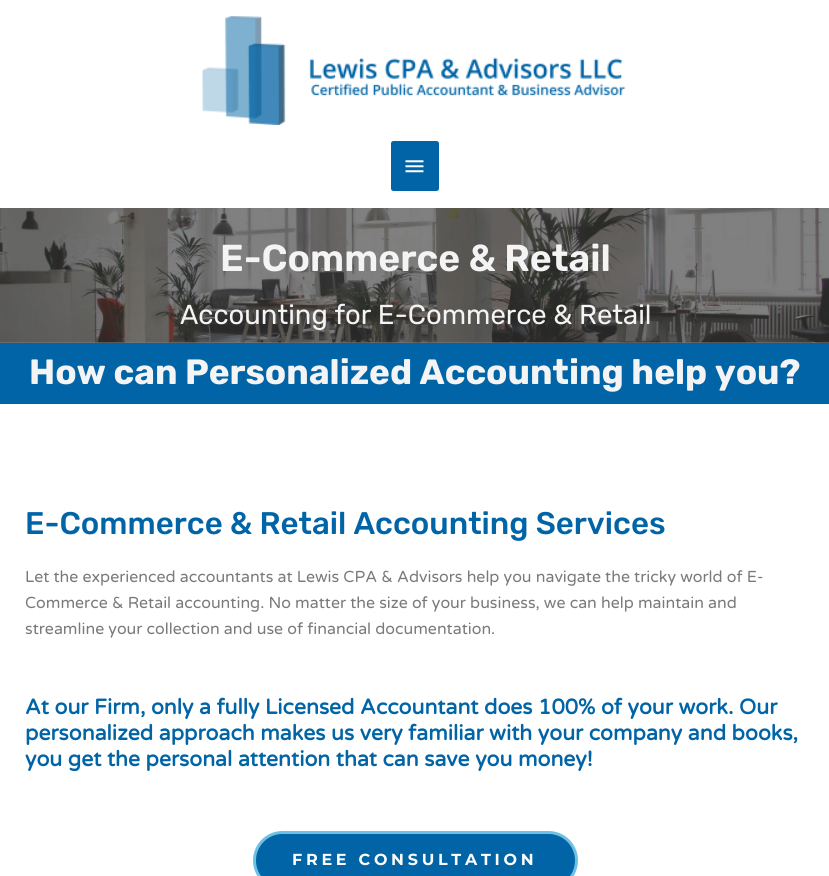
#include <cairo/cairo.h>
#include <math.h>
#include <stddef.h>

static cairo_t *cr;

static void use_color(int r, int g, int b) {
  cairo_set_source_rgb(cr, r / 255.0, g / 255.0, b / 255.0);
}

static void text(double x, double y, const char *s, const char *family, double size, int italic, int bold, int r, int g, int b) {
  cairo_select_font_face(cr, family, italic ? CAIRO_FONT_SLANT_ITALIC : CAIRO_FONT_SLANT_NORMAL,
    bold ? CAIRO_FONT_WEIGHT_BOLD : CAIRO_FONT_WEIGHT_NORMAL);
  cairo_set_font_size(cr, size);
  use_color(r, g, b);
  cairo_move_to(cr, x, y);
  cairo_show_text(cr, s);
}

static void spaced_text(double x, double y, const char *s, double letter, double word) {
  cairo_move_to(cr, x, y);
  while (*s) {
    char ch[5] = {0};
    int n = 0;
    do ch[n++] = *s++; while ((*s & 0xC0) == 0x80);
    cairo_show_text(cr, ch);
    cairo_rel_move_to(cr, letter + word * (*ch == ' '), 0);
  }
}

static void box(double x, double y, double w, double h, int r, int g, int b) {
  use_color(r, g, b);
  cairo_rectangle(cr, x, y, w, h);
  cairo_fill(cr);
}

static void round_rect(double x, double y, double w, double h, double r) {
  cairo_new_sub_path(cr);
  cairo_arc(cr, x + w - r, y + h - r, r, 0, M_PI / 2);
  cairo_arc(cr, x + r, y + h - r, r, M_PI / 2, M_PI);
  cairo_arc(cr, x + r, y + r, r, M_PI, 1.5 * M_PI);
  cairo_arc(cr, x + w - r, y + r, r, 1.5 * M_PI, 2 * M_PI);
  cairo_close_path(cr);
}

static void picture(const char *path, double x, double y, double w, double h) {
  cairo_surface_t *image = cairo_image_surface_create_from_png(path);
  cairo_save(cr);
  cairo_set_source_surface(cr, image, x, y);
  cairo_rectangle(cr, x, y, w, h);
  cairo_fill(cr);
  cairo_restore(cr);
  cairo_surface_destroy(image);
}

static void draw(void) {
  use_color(255, 255, 255);
  cairo_paint(cr);
  box(0, 342, 829, 1, 128, 128, 128);
  picture("img_01.png", 202, 16, 424, 109);
  use_color(0, 100, 166);
  round_rect(391, 141, 48, 50, 2.5);
  cairo_fill(cr);
  picture("img_02.png", 405, 160, 19, 13);
  picture("img_03.png", 0, 208, 829, 135);
  box(0, 343, 829, 61, 0, 100, 166);
  round_rect(254.5, 832.5, 322, 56, 28);
  cairo_fill_preserve(cr);
  use_color(110, 193, 228);
  cairo_set_line_width(cr, 3);
  cairo_stroke(cr);
  text(220, 271, "E-Commerce & Retail", "Rubik SemiBold", 37.5, 0, 0, 244, 244, 244);
  text(180, 324, "Accounting for E-Commerce & Retail", "Rubik", 27.4, 0, 0, 244, 244, 244);
  text(29, 384, "How can Personalized Accounting help you?", "Rubik", 35.1, 0, 1, 244, 244, 244);
  text(25, 534, "E-Commerce & Retail Accounting Services", "Rubik Medium", 31.25, 0, 0, 0, 100, 166);
  text(25, 582, "Let the experienced accountants at Lewis CPA & Advisors help you navigate the tricky world of E-", "Varela Round", 15.95, 0, 0, 122, 122, 122);
  text(25, 608, "Commerce & Retail accounting. No matter the size of your business, we can help maintain and", "Varela Round", 15.95, 0, 0, 122, 122, 122);
  text(25, 634, "streamline your collection and use of financial documentation.", "Varela Round", 15.95, 0, 0, 122, 122, 122);
  text(25, 714, "At our Firm, only a fully Licensed Accountant does 100% of your work. Our", "Varela Round", 21.25, 0, 1, 0, 100, 166);
  text(25, 740, "personalized approach makes us very familiar with your company and books,", "Varela Round", 21.25, 0, 1, 0, 100, 166);
  text(25, 766, "you get the personal attention that can save you money!", "Varela Round", 21.25, 0, 1, 0, 100, 166);
  cairo_select_font_face(cr, "Montserrat", CAIRO_FONT_SLANT_NORMAL, CAIRO_FONT_WEIGHT_BOLD);
  cairo_set_font_size(cr, 15.95);
  use_color(252, 252, 252);
  spaced_text(292, 865, "FREE CONSULTATION", 3.75, 0);
}

int main(void) {
  cairo_surface_t *surface = cairo_image_surface_create(CAIRO_FORMAT_RGB24, 829, 876);
  cr = cairo_create(surface);
  cairo_font_options_t *options = cairo_font_options_create();
  cairo_font_options_set_hint_metrics(options, CAIRO_HINT_METRICS_OFF);
  cairo_font_options_set_hint_style(options, CAIRO_HINT_STYLE_NONE);
  cairo_set_font_options(cr, options);
  cairo_set_miter_limit(cr, 4);
  draw();
  cairo_surface_write_to_png(surface, "out.png");
  cairo_font_options_destroy(options);
  cairo_destroy(cr);
  cairo_surface_destroy(surface);
  return 0;
}
